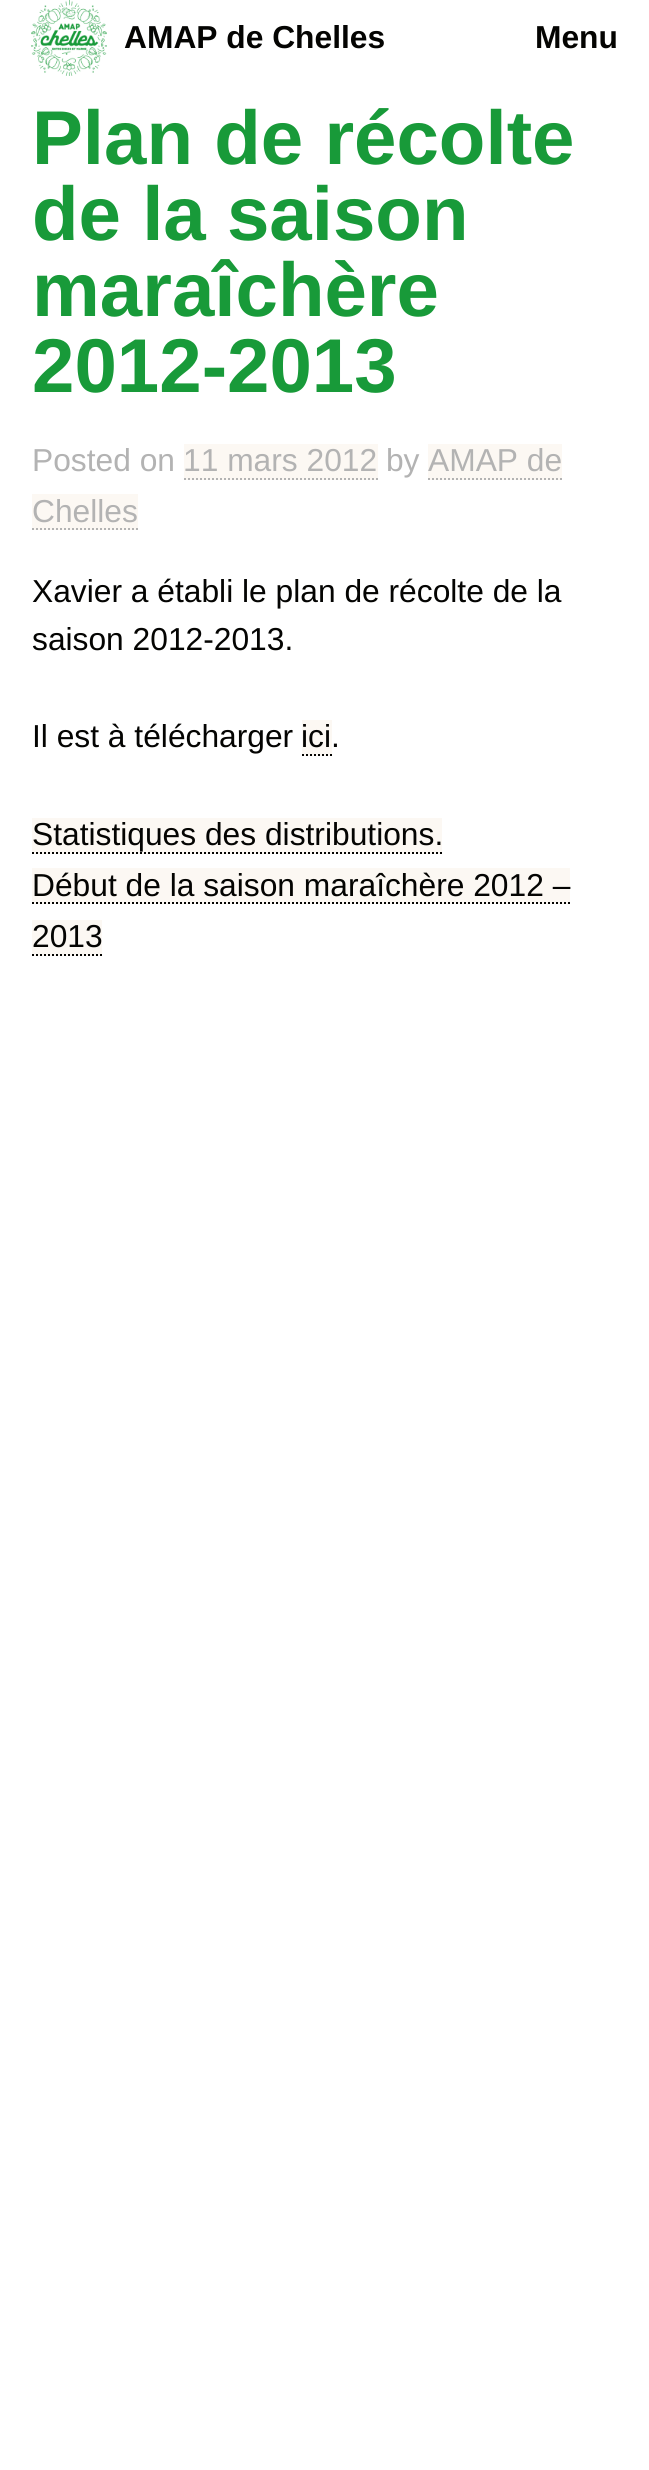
#include <cairo/cairo.h>
#include <math.h>
#include <stddef.h>

static cairo_t *cr;

static void use_color(int r, int g, int b) {
  cairo_set_source_rgb(cr, r / 255.0, g / 255.0, b / 255.0);
}

static void text(double x, double y, const char *s, const char *family, double size, int italic, int bold, int r, int g, int b) {
  cairo_select_font_face(cr, family, italic ? CAIRO_FONT_SLANT_ITALIC : CAIRO_FONT_SLANT_NORMAL,
    bold ? CAIRO_FONT_WEIGHT_BOLD : CAIRO_FONT_WEIGHT_NORMAL);
  cairo_set_font_size(cr, size);
  use_color(r, g, b);
  cairo_move_to(cr, x, y);
  cairo_show_text(cr, s);
}

static void box(double x, double y, double w, double h, int r, int g, int b) {
  use_color(r, g, b);
  cairo_rectangle(cr, x, y, w, h);
  cairo_fill(cr);
}

static void picture(const char *path, double x, double y, double w, double h) {
  cairo_surface_t *image = cairo_image_surface_create_from_png(path);
  cairo_save(cr);
  cairo_set_source_surface(cr, image, x, y);
  cairo_rectangle(cr, x, y, w, h);
  cairo_fill(cr);
  cairo_restore(cr);
  cairo_surface_destroy(image);
}

static void draw(void) {
  use_color(255, 255, 255);
  cairo_paint(cr);
  picture("img_01.png", 31, 0, 76, 76);
  box(184, 444, 194, 36, 252, 248, 243);
  cairo_new_path(cr);
  cairo_move_to(cr, 184, 479);
  cairo_line_to(cr, 378, 479);
  use_color(179, 179, 179);
  cairo_set_dash(cr, (double[]){2, 2}, 2, 0);
  cairo_stroke(cr);
  box(428, 444, 134, 36, 252, 248, 243);
  cairo_new_path(cr);
  cairo_move_to(cr, 428, 479);
  cairo_line_to(cr, 562, 479);
  use_color(179, 179, 179);
  cairo_stroke(cr);
  box(32, 494, 106, 36, 252, 248, 243);
  cairo_new_path(cr);
  cairo_move_to(cr, 32, 529);
  cairo_line_to(cr, 138, 529);
  use_color(179, 179, 179);
  cairo_stroke(cr);
  box(302, 720, 30, 36, 252, 248, 243);
  cairo_new_path(cr);
  cairo_move_to(cr, 302, 755);
  cairo_line_to(cr, 332, 755);
  use_color(4, 4, 2);
  cairo_stroke(cr);
  box(32, 818, 410, 36, 252, 248, 243);
  cairo_new_path(cr);
  cairo_move_to(cr, 32, 853);
  cairo_line_to(cr, 442, 853);
  use_color(4, 4, 2);
  cairo_stroke(cr);
  box(32, 868, 538, 36, 252, 248, 243);
  cairo_new_path(cr);
  cairo_move_to(cr, 32, 903);
  cairo_line_to(cr, 570, 903);
  use_color(4, 4, 2);
  cairo_stroke(cr);
  box(32, 920, 70, 36, 252, 248, 243);
  cairo_new_path(cr);
  cairo_move_to(cr, 32, 955);
  cairo_line_to(cr, 102, 955);
  use_color(4, 4, 2);
  cairo_stroke(cr);
  text(124, 48, "AMAP de Chelles", "Liberation Sans", 31.75, 0, 1, 4, 4, 2);
  text(535, 48, "Menu", "Liberation Sans", 31.75, 0, 1, 4, 4, 2);
  text(32, 164, "Plan de récolte", "Liberation Sans", 76.25, 0, 1, 24, 154, 57);
  text(32, 240, "de la saison", "Liberation Sans", 76.25, 0, 1, 24, 154, 57);
  text(32, 316, "maraîchère", "Liberation Sans", 76.25, 0, 1, 24, 154, 57);
  text(32, 392, "2012-2013", "Liberation Sans", 76.25, 0, 1, 24, 154, 57);
  text(32, 471, "Posted on", "Liberation Sans", 31.75, 0, 0, 179, 179, 179);
  text(183, 471, "11 mars 2012 by", "Liberation Sans", 31.75, 0, 0, 179, 179, 179);
  text(428, 471, "AMAP de", "Liberation Sans", 31.75, 0, 0, 179, 179, 179);
  text(32, 522, "Chelles", "Liberation Sans", 31.75, 0, 0, 179, 179, 179);
  text(32, 602, "Xavier a établi le plan de récolte de la", "Liberation Sans", 31.75, 0, 0, 4, 4, 2);
  text(32, 650, "saison 2012-2013.", "Liberation Sans", 31.75, 0, 0, 4, 4, 2);
  text(32, 747, "Il est à télécharger", "Liberation Sans", 31.75, 0, 0, 4, 4, 2);
  text(301, 747, "ici.", "Liberation Sans", 31.75, 0, 0, 4, 4, 2);
  text(32, 845, "Statistiques des distributions.", "Liberation Sans", 31.75, 0, 0, 4, 4, 2);
  text(32, 896, "Début de la saison maraîchère 2012 –", "Liberation Sans", 31.75, 0, 0, 4, 4, 2);
  text(32, 947, "2013", "Liberation Sans", 31.75, 0, 0, 4, 4, 2);
}

int main(void) {
  cairo_surface_t *surface = cairo_image_surface_create(CAIRO_FORMAT_RGB24, 649, 2470);
  cr = cairo_create(surface);
  cairo_font_options_t *options = cairo_font_options_create();
  cairo_font_options_set_hint_metrics(options, CAIRO_HINT_METRICS_OFF);
  cairo_font_options_set_hint_style(options, CAIRO_HINT_STYLE_NONE);
  cairo_set_font_options(cr, options);
  cairo_set_miter_limit(cr, 4);
  draw();
  cairo_surface_write_to_png(surface, "out.png");
  cairo_font_options_destroy(options);
  cairo_destroy(cr);
  cairo_surface_destroy(surface);
  return 0;
}
